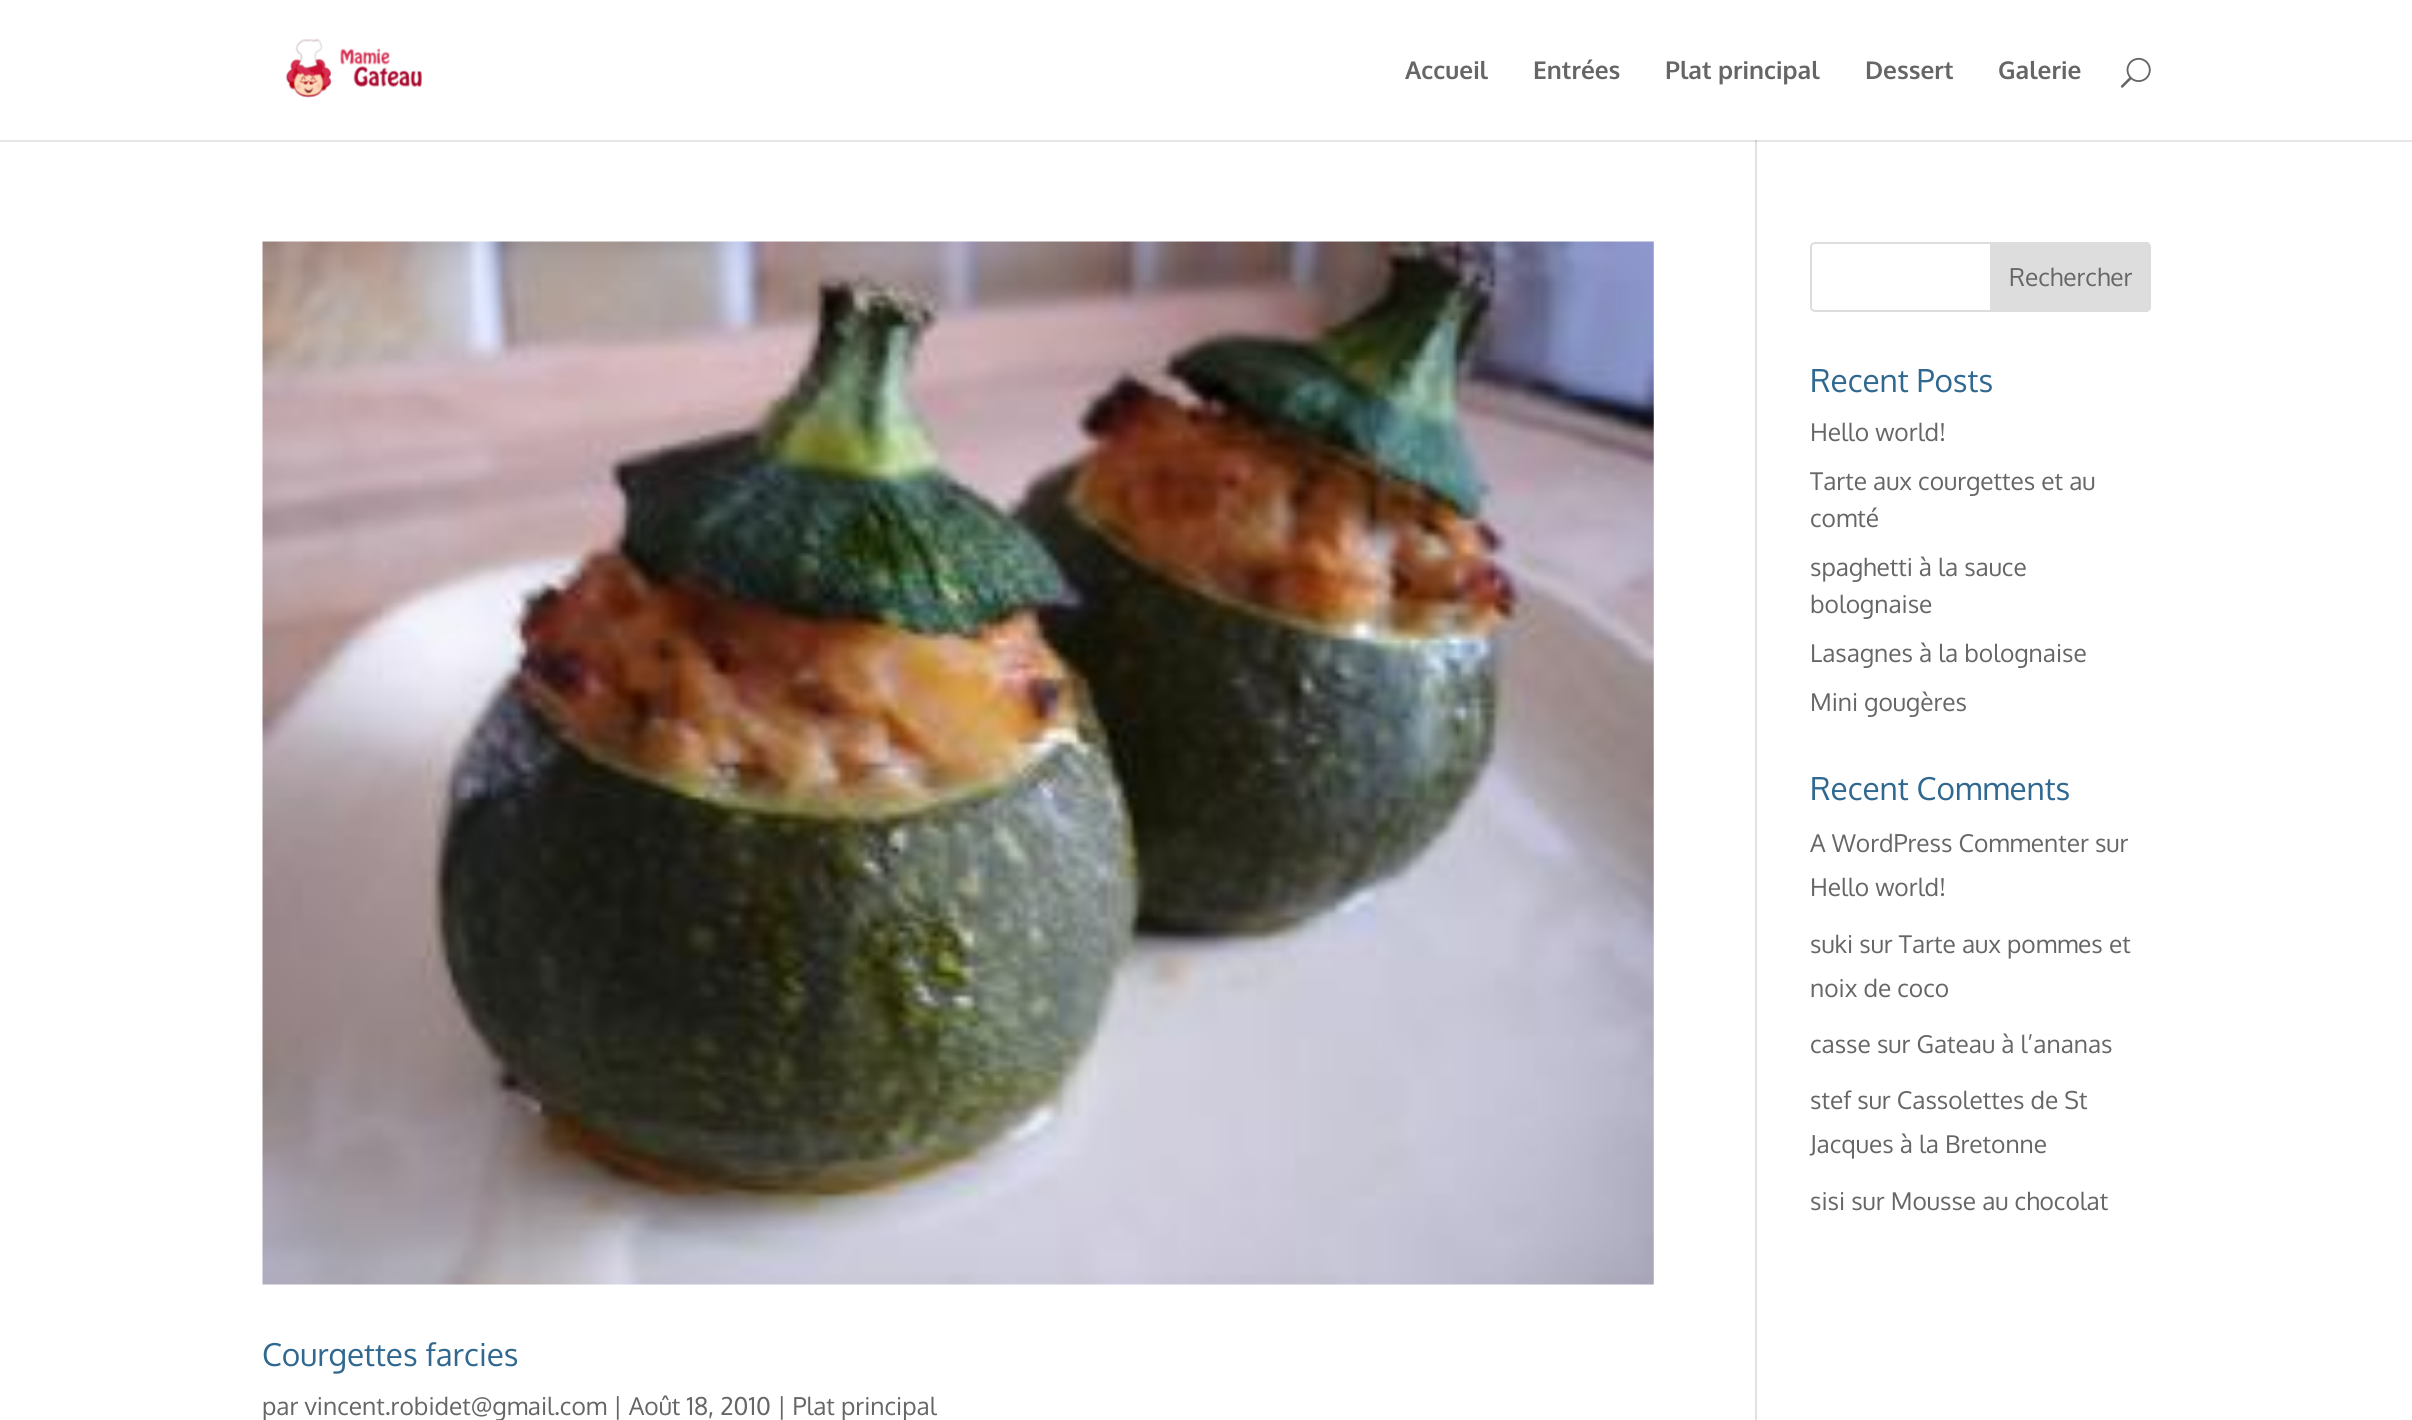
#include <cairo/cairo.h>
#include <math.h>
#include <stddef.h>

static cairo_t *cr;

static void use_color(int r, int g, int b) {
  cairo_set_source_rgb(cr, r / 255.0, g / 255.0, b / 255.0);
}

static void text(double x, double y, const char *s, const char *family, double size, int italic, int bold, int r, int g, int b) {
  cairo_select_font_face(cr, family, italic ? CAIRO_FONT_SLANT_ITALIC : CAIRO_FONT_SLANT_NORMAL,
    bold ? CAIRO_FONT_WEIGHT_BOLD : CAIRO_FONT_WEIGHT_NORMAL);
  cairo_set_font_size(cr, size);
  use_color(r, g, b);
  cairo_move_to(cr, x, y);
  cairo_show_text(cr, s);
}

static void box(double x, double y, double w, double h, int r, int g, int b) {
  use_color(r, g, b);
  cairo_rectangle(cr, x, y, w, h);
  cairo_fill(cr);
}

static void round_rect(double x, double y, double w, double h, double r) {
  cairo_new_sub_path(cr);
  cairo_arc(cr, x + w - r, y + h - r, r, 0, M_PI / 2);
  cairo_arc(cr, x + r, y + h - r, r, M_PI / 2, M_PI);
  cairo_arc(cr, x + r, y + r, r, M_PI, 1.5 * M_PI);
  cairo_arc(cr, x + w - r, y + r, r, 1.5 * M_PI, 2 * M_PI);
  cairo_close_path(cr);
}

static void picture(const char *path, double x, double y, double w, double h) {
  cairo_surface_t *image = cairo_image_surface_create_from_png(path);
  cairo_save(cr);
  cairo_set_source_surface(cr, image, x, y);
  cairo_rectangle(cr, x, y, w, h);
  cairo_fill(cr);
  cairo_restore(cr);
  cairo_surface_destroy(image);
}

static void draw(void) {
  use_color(255, 255, 255);
  cairo_paint(cr);
  box(0, 140, 2412, 2, 230, 230, 230);
  picture("img_01.png", 285, 38, 137, 60);
  picture("img_02.png", 2120, 57, 31, 31);
  box(1755, 140, 2, 1280, 226, 226, 226);
  box(1755, 140, 2, 2, 203, 203, 203);
  round_rect(1811, 243, 339, 68, 4);
  use_color(221, 221, 221);
  cairo_stroke(cr);
  cairo_new_path(cr);
  cairo_move_to(cr, 1991, 243);
  cairo_line_to(cr, 2146, 243);
  cairo_curve_to(cr, 2148, 243, 2150, 245, 2150, 247);
  cairo_line_to(cr, 2150, 307);
  cairo_curve_to(cr, 2150, 309, 2148, 311, 2146, 311);
  cairo_line_to(cr, 1991, 311);
  cairo_close_path(cr);
  cairo_fill_preserve(cr);
  cairo_stroke(cr);
  picture("img_03.png", 262, 241, 1392, 1044);
  text(1405, 79, "Accueil", "Oxygen", 24.5, 0, 1, 102, 102, 102);
  text(1533, 79, "Entrées", "Oxygen", 24.5, 0, 1, 102, 102, 102);
  text(1665, 79, "Plat principal", "Oxygen", 24.5, 0, 1, 102, 102, 102);
  text(1865, 79, "Dessert", "Oxygen", 24.5, 0, 1, 102, 102, 102);
  text(1998, 79, "Galerie", "Oxygen", 24.5, 0, 1, 102, 102, 102);
  text(2009, 286, "Rechercher", "Oxygen", 24.5, 0, 0, 102, 102, 102);
  text(1810, 392, "Recent Posts", "Oxygen", 31.5, 0, 0, 49, 104, 144);
  text(1810, 441, "Hello world!", "Oxygen", 24.5, 0, 0, 102, 102, 102);
  text(1810, 490, "Tarte aux courgettes et au", "Oxygen", 24.5, 0, 0, 102, 102, 102);
  text(1810, 527, "comté", "Oxygen", 24.5, 0, 0, 102, 102, 102);
  text(1810, 576, "spaghetti à la sauce", "Oxygen", 24.5, 0, 0, 102, 102, 102);
  text(1810, 613, "bolognaise", "Oxygen", 24.5, 0, 0, 102, 102, 102);
  text(1810, 662, "Lasagnes à la bolognaise", "Oxygen", 24.5, 0, 0, 102, 102, 102);
  text(1810, 711, "Mini gougères", "Oxygen", 24.5, 0, 0, 102, 102, 102);
  text(1810, 800, "Recent Comments", "Oxygen", 31.5, 0, 0, 49, 104, 144);
  text(1810, 852, "A WordPress Commenter sur", "Oxygen", 24.5, 0, 0, 102, 102, 102);
  text(1810, 896, "Hello world!", "Oxygen", 24.5, 0, 0, 102, 102, 102);
  text(1810, 953, "suki sur Tarte aux pommes et", "Oxygen", 24.5, 0, 0, 102, 102, 102);
  text(1810, 997, "noix de coco", "Oxygen", 24.5, 0, 0, 102, 102, 102);
  text(1810, 1053, "casse sur Gateau à l’ananas", "Oxygen", 24.5, 0, 0, 102, 102, 102);
  text(1810, 1109, "stef sur Cassolettes de St", "Oxygen", 24.5, 0, 0, 102, 102, 102);
  text(1810, 1153, "Jacques à la Bretonne", "Oxygen", 24.5, 0, 0, 102, 102, 102);
  text(1810, 1210, "sisi sur Mousse au chocolat", "Oxygen", 24.5, 0, 0, 102, 102, 102);
  text(262, 1366, "Courgettes farcies", "Oxygen", 31.5, 0, 0, 49, 104, 144);
  text(262, 1415, "par vincent.robidet@gmail.com | Août 18, 2010 | Plat principal", "Oxygen", 24.5, 0, 0, 102, 102, 102);
}

int main(void) {
  cairo_surface_t *surface = cairo_image_surface_create(CAIRO_FORMAT_RGB24, 2412, 1420);
  cr = cairo_create(surface);
  cairo_font_options_t *options = cairo_font_options_create();
  cairo_font_options_set_hint_metrics(options, CAIRO_HINT_METRICS_OFF);
  cairo_font_options_set_hint_style(options, CAIRO_HINT_STYLE_NONE);
  cairo_set_font_options(cr, options);
  cairo_set_miter_limit(cr, 4);
  draw();
  cairo_surface_write_to_png(surface, "out.png");
  cairo_font_options_destroy(options);
  cairo_destroy(cr);
  cairo_surface_destroy(surface);
  return 0;
}
